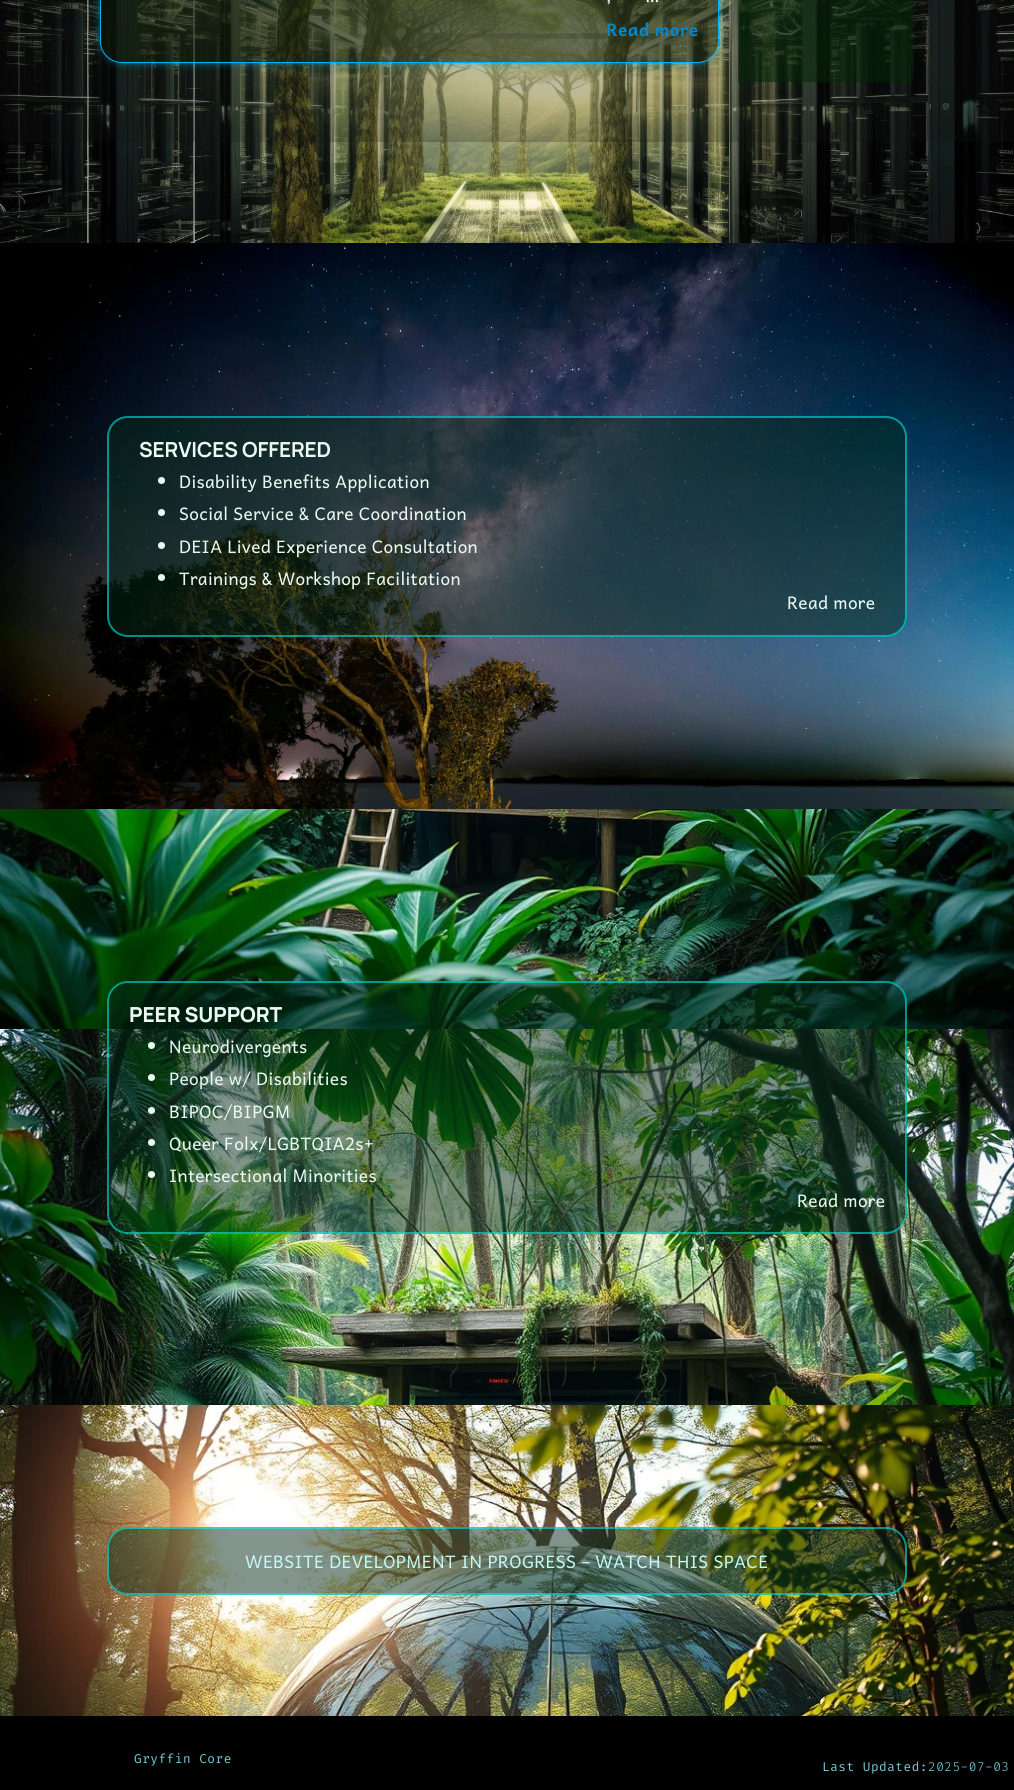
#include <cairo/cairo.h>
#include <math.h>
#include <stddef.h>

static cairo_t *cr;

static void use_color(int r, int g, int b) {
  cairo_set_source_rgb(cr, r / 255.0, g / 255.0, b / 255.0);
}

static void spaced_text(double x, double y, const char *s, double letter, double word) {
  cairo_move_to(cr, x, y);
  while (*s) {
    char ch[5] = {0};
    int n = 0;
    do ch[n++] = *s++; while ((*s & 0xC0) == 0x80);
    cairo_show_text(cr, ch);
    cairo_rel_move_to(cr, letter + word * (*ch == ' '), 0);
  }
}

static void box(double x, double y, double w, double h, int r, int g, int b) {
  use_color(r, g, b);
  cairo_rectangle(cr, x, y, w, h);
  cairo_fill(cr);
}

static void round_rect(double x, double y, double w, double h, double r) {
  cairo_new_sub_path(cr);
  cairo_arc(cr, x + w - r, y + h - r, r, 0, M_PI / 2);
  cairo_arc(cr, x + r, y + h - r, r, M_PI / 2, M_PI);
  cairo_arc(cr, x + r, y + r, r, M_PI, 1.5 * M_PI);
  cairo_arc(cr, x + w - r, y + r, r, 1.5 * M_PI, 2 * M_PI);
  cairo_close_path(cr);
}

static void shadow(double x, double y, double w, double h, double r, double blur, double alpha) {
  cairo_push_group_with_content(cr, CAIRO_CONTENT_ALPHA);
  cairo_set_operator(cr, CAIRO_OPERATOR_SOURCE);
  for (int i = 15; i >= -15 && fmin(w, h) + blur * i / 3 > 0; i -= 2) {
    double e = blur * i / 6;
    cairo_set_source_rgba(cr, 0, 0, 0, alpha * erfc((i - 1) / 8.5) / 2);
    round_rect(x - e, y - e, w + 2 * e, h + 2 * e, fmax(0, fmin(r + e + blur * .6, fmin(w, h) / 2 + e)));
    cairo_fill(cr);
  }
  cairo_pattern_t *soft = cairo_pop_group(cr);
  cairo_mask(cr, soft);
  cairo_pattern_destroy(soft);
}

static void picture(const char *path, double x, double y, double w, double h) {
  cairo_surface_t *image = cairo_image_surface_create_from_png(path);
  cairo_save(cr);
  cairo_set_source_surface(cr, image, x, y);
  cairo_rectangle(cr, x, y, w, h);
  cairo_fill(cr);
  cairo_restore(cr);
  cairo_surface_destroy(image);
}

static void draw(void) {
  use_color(255, 255, 255);
  cairo_paint(cr);
  picture("img_01.png", 0, 0, 1014, 243);
  cairo_set_source_rgba(cr, 0.067, 0.09, 0.067, 0.25);
  cairo_rectangle(cr, 0, 0, 1014, 142);
  cairo_fill(cr);
  round_rect(100.5, -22.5, 618, 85, 21.5);
  use_color(0, 169, 254);
  cairo_set_line_width(cr, 1);
  cairo_stroke(cr);
  cairo_save(cr);
  cairo_set_fill_rule(cr, CAIRO_FILL_RULE_EVEN_ODD);
  cairo_new_path(cr);
  cairo_move_to(cr, 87, 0);
  cairo_line_to(cr, 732, 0);
  cairo_line_to(cr, 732, 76);
  cairo_line_to(cr, 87, 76);
  cairo_close_path(cr);
  cairo_move_to(cr, 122, -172);
  cairo_line_to(cr, 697, -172);
  cairo_curve_to(cr, 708.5, -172, 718, -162.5, 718, -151);
  cairo_line_to(cr, 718, 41);
  cairo_curve_to(cr, 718, 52.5, 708.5, 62, 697, 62);
  cairo_line_to(cr, 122, 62);
  cairo_curve_to(cr, 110.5, 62, 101, 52.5, 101, 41);
  cairo_line_to(cr, 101, -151);
  cairo_curve_to(cr, 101, -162.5, 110.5, -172, 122, -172);
  cairo_close_path(cr);
  cairo_clip(cr);
  use_color(0, 204, 255);
  shadow(100, -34, 619, 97, 22, 4, 0.51);
  cairo_restore(cr);
  cairo_set_source_rgba(cr, 0.071, 0.118, 0.027, 0.48);
  round_rect(101, -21, 617, 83, 21);
  cairo_fill(cr);
  cairo_set_source_rgba(cr, 0.024, 0.149, 0.024, 0.56);
  cairo_rectangle(cr, 738, 0, 175, 82);
  cairo_fill(cr);
  picture("img_02.png", 0, 243, 1014, 566);
  cairo_set_source_rgba(cr, 0.008, 0.153, 0.09, 0.49);
  round_rect(107, 416, 800, 221, 21);
  cairo_fill(cr);
  round_rect(108, 417, 798, 219, 20);
  cairo_set_source_rgba(cr, 0, 1, 1, 0.52);
  cairo_set_line_width(cr, 2);
  cairo_stroke(cr);
  use_color(234, 250, 242);
  cairo_arc(cr, 161.5, 480.5, 3.5, 0, 2 * M_PI);
  cairo_fill(cr);
  cairo_arc(cr, 161.5, 512.5, 3.5, 0, 2 * M_PI);
  cairo_fill(cr);
  cairo_arc(cr, 161.5, 545.5, 3.5, 0, 2 * M_PI);
  cairo_fill(cr);
  cairo_arc(cr, 161.5, 577.5, 3.5, 0, 2 * M_PI);
  cairo_fill(cr);
  picture("img_03.png", 0, 809, 1014, 596);
  cairo_set_source_rgba(cr, 0.008, 0.153, 0.09, 0.49);
  round_rect(107, 981, 800, 253, 21);
  cairo_fill(cr);
  round_rect(108, 982, 798, 251, 20);
  cairo_set_source_rgba(cr, 0, 1, 1, 0.52);
  cairo_stroke(cr);
  use_color(234, 250, 242);
  cairo_arc(cr, 151.5, 1045.5, 3.5, 0, 2 * M_PI);
  cairo_fill(cr);
  cairo_arc(cr, 151.5, 1077.5, 3.5, 0, 2 * M_PI);
  cairo_fill(cr);
  cairo_arc(cr, 151.5, 1110.5, 3.5, 0, 2 * M_PI);
  cairo_fill(cr);
  cairo_arc(cr, 151.5, 1142.5, 3.5, 0, 2 * M_PI);
  cairo_fill(cr);
  cairo_arc(cr, 151.5, 1174.5, 3.5, 0, 2 * M_PI);
  cairo_fill(cr);
  picture("img_04.png", 0, 1405, 1014, 311);
  cairo_set_source_rgba(cr, 0.008, 0.153, 0.09, 0.49);
  round_rect(107, 1527, 800, 68, 21);
  cairo_fill(cr);
  round_rect(108, 1528, 798, 66, 20);
  cairo_set_source_rgba(cr, 0, 1, 1, 0.52);
  cairo_stroke(cr);
  box(0, 1716, 1014, 74, 0, 0, 0);
  cairo_select_font_face(cr, "Andika", CAIRO_FONT_SLANT_NORMAL, CAIRO_FONT_WEIGHT_NORMAL);
  cairo_set_font_size(cr, 17.35);
  use_color(253, 255, 242);
  spaced_text(606, 2, ",", 0.3, 0);
  spaced_text(645, 2, "…", 0.3, 0);
  cairo_select_font_face(cr, "Andika", CAIRO_FONT_SLANT_NORMAL, CAIRO_FONT_WEIGHT_BOLD);
  use_color(1, 136, 204);
  spaced_text(606, 36, "Read more", 0.3, 0);
  cairo_select_font_face(cr, "Manrope", CAIRO_FONT_SLANT_NORMAL, CAIRO_FONT_WEIGHT_BOLD);
  cairo_set_font_size(cr, 20.75);
  use_color(234, 250, 242);
  spaced_text(139, 457, "SERVICES OFFERED", -0.1, 0);
  cairo_select_font_face(cr, "Andika", CAIRO_FONT_SLANT_NORMAL, CAIRO_FONT_WEIGHT_NORMAL);
  cairo_set_font_size(cr, 17.35);
  spaced_text(179, 488, "Disability Benefits Application", 0.3, 0);
  spaced_text(179, 520, "Social Service & Care Coordination", 0.3, 0);
  spaced_text(179, 553, "DEIA Lived Experience Consultation", 0.3, 0);
  spaced_text(179, 585, "Trainings & Workshop Facilitation", 0.3, 0);
  spaced_text(787, 609, "Read more", 0.3, 0);
  cairo_select_font_face(cr, "Manrope ExtraBold", CAIRO_FONT_SLANT_NORMAL, CAIRO_FONT_WEIGHT_NORMAL);
  cairo_set_font_size(cr, 20.75);
  spaced_text(129, 1022, "PEER SUPPORT", -0.1, 0);
  cairo_select_font_face(cr, "Andika", CAIRO_FONT_SLANT_NORMAL, CAIRO_FONT_WEIGHT_NORMAL);
  cairo_set_font_size(cr, 17.35);
  spaced_text(169, 1053, "Neurodivergents", 0.3, 0);
  spaced_text(169, 1085, "People w/ Disabilities", 0.3, 0);
  spaced_text(169, 1118, "BIPOC/BIPGM", 0.3, 0);
  spaced_text(169, 1150, "Queer Folx/LGBTQIA2s+", 0.3, 0);
  spaced_text(169, 1182, "Intersectional Minorities", 0.3, 0);
  spaced_text(797, 1207, "Read more", 0.3, 0);
  use_color(195, 248, 245);
  spaced_text(245, 1568, "WEBSITE DEVELOPMENT IN PROGRESS – WATCH THIS SPACE", 0.3, 0);
  cairo_select_font_face(cr, "Fira Code", CAIRO_FONT_SLANT_NORMAL, CAIRO_FONT_WEIGHT_NORMAL);
  cairo_set_font_size(cr, 12.75);
  use_color(121, 201, 217);
  spaced_text(134, 1763, "Gryffin Core", 0.5, 0);
  spaced_text(822, 1771, "Last Updated:", 0.5, 0);
  cairo_select_font_face(cr, "Fira Code Light", CAIRO_FONT_SLANT_NORMAL, CAIRO_FONT_WEIGHT_NORMAL);
  spaced_text(928, 1771, "2025-07-03", 0.5, 0);
}

int main(void) {
  cairo_surface_t *surface = cairo_image_surface_create(CAIRO_FORMAT_RGB24, 1014, 1790);
  cr = cairo_create(surface);
  cairo_font_options_t *options = cairo_font_options_create();
  cairo_font_options_set_hint_metrics(options, CAIRO_HINT_METRICS_OFF);
  cairo_font_options_set_hint_style(options, CAIRO_HINT_STYLE_NONE);
  cairo_set_font_options(cr, options);
  cairo_set_miter_limit(cr, 4);
  draw();
  cairo_surface_write_to_png(surface, "out.png");
  cairo_font_options_destroy(options);
  cairo_destroy(cr);
  cairo_surface_destroy(surface);
  return 0;
}
